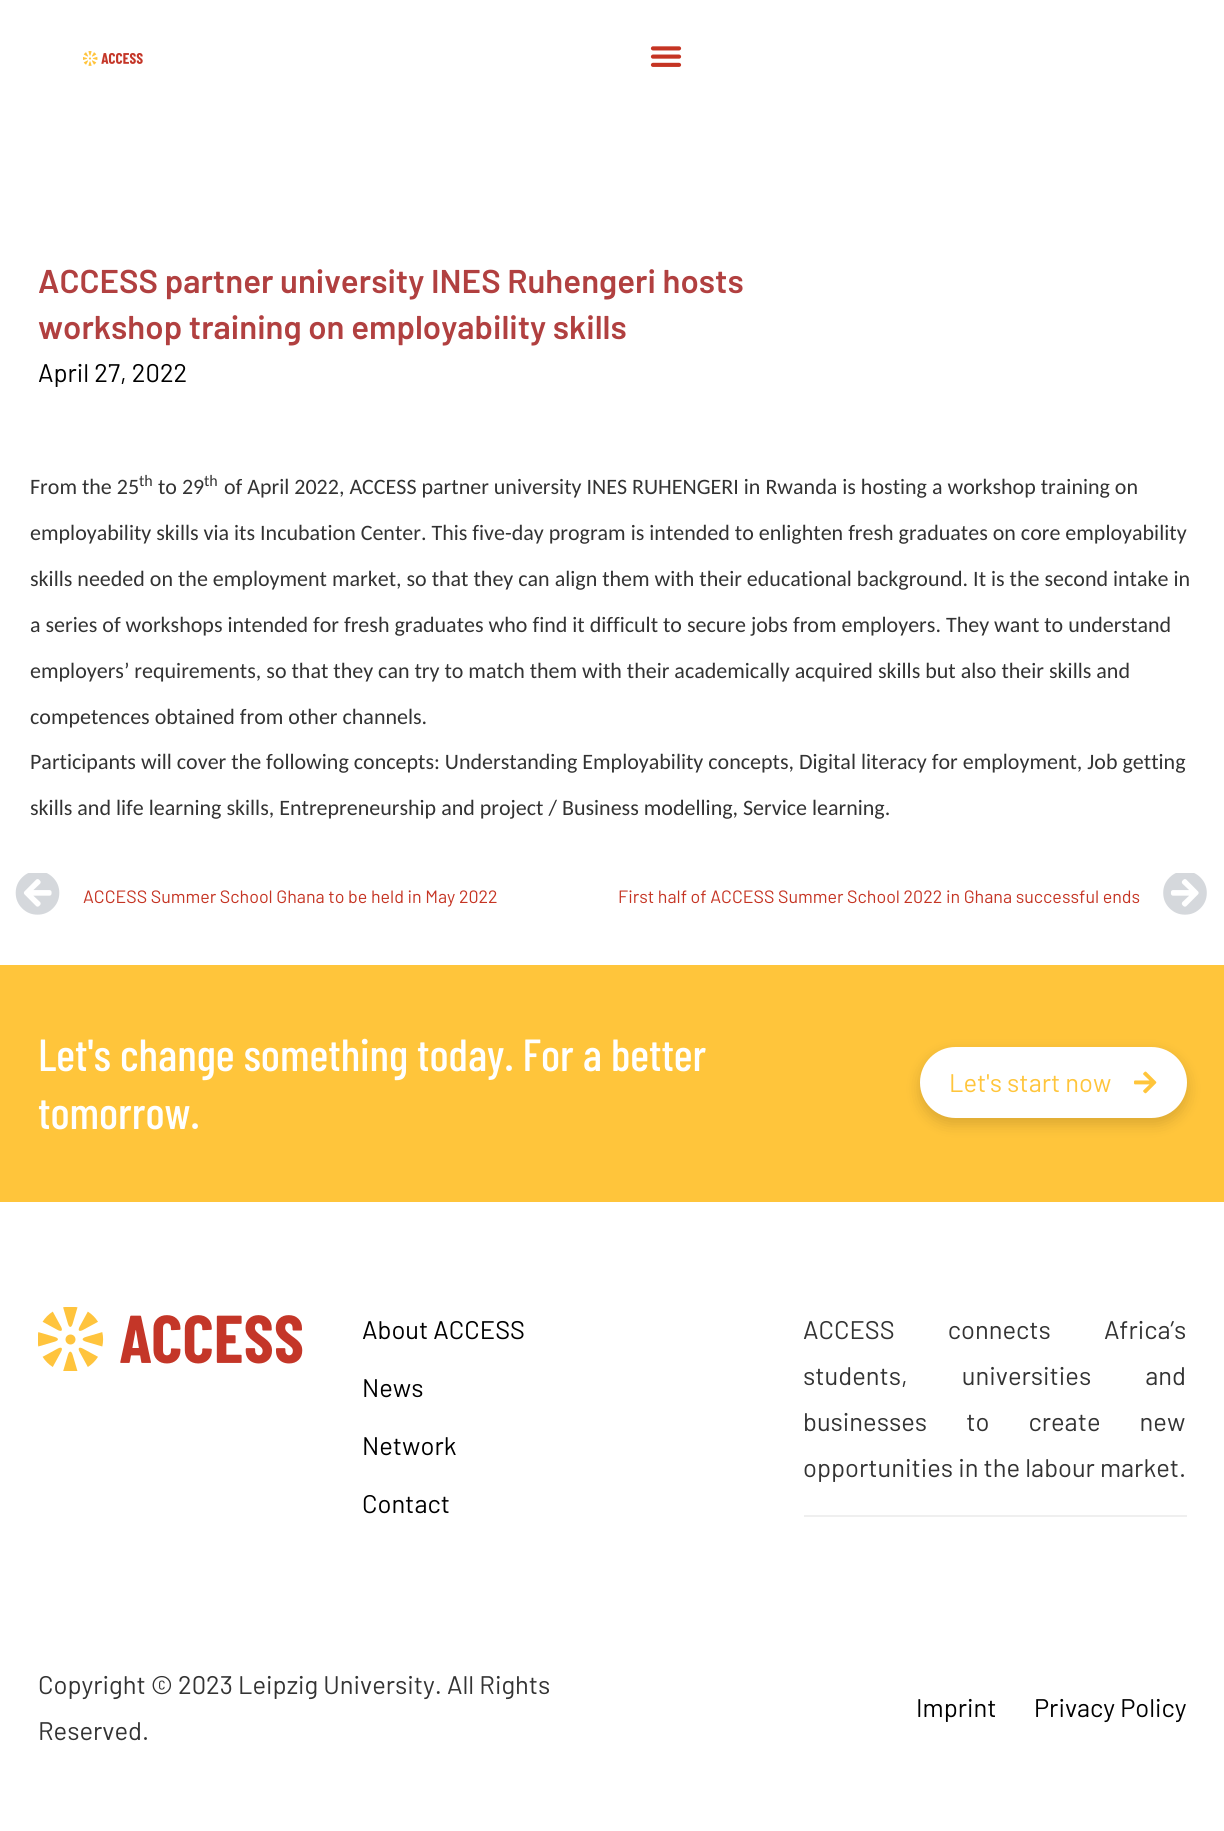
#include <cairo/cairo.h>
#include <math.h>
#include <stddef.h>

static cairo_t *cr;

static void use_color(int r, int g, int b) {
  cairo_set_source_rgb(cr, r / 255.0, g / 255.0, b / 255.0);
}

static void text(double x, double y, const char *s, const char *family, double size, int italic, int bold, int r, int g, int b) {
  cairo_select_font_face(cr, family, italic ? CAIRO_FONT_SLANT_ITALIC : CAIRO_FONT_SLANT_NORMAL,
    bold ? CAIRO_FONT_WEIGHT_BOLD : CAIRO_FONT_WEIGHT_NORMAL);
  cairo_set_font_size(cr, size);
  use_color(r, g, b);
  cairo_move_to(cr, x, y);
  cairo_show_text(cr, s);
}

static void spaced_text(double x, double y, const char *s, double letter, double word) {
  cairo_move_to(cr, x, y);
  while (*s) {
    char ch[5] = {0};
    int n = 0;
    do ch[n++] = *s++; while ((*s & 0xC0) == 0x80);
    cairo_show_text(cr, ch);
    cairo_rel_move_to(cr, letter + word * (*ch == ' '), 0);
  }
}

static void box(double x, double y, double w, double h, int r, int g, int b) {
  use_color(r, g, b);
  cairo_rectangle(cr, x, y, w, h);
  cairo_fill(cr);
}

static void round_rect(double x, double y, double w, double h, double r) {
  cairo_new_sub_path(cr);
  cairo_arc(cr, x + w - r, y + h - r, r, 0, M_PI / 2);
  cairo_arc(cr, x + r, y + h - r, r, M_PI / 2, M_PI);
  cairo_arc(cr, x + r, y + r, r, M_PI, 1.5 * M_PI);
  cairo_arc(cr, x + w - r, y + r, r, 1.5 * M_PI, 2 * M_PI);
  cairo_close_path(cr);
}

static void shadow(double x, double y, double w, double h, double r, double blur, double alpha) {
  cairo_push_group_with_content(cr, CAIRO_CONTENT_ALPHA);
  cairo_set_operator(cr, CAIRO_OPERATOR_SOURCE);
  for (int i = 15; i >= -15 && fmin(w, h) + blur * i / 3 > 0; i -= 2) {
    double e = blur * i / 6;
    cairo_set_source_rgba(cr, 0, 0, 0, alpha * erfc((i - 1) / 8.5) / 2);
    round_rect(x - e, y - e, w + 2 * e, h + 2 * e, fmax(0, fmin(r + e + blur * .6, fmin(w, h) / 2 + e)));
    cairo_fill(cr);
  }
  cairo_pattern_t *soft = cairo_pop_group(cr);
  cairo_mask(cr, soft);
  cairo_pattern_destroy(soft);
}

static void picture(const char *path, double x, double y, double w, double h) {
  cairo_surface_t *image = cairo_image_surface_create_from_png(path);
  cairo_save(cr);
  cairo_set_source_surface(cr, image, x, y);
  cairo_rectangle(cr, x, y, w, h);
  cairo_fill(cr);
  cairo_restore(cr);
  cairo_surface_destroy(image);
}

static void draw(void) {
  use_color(255, 255, 255);
  cairo_paint(cr);
  picture("img_01.png", 83, 51, 60, 15);
  picture("img_02.png", 650, 46, 32, 21);
  picture("img_03.png", 15, 873, 45, 42);
  picture("img_04.png", 1163, 873, 44, 42);
  box(0, 965, 1224, 237, 255, 197, 59);
  use_color(0, 0, 0);
  shadow(920, 1053, 267, 71, 35.5, 7.5, 0.15);
  use_color(255, 255, 255);
  round_rect(920, 1047, 267, 71, 35.5);
  cairo_fill(cr);
  picture("img_05.png", 1134, 1071, 23, 23);
  picture("img_06.png", 38, 1307, 265, 64);
  box(804, 1515, 383, 2, 239, 239, 239);
  text(38, 293, "ACCESS partner university INES Ruhengeri hosts", "Barlow SemiBold", 33, 0, 0, 177, 64, 64);
  text(38, 339, "workshop training on employability skills", "Barlow SemiBold", 33, 0, 0, 177, 64, 64);
  text(38, 382, "April 27, 2022", "Barlow", 25.5, 0, 0, 0, 0, 0);
  text(30, 494, "From the 25", "Carlito", 22, 0, 0, 51, 51, 51);
  text(139, 486, "th", "Carlito", 16, 0, 0, 51, 51, 51);
  text(158, 494, "to 29", "Carlito", 22, 0, 0, 51, 51, 51);
  text(204, 486, "th", "Carlito", 16, 0, 0, 51, 51, 51);
  text(224, 494, "of April 2022, ACCESS partner university INES RUHENGERI in Rwanda is hosting a workshop training on", "Carlito", 22, 0, 0, 51, 51, 51);
  text(30, 540, "employability skills via its Incubation Center. This five-day program is intended to enlighten fresh graduates on core employability", "Carlito", 22, 0, 0, 51, 51, 51);
  text(30, 586, "skills needed on the employment market, so that they can align them with their educational background. It is the second intake in", "Carlito", 22, 0, 0, 51, 51, 51);
  text(30, 632, "a series of workshops intended for fresh graduates who find it difficult to secure jobs from employers. They want to understand", "Carlito", 22, 0, 0, 51, 51, 51);
  text(30, 678, "employers’ requirements, so that they can try to match them with their academically acquired skills but also their skills and", "Carlito", 22, 0, 0, 51, 51, 51);
  text(30, 724, "competences obtained from other channels.", "Carlito", 22, 0, 0, 51, 51, 51);
  text(30, 769, "Participants will cover the following concepts: Understanding Employability concepts, Digital literacy for employment, Job getting", "Carlito", 22, 0, 0, 51, 51, 51);
  text(30, 815, "skills and life learning skills, Entrepreneurship and project / Business modelling, Service learning.", "Carlito", 22, 0, 0, 51, 51, 51);
  text(83, 903, "ACCESS Summer School Ghana to be held in May 2022", "Barlow", 17.85, 0, 0, 197, 52, 35);
  text(618, 903, "First half of ACCESS Summer School 2022 in Ghana successful ends", "Barlow", 17.85, 0, 0, 197, 52, 35);
  text(38, 1071, "Let's change something today. For a better", "Barlow Condensed Medium", 45, 0, 0, 255, 255, 255);
  text(38, 1129, "tomorrow.", "Barlow Condensed Medium", 45, 0, 0, 255, 255, 255);
  text(949, 1092, "Let's start now", "Barlow", 25.5, 0, 0, 255, 197, 59);
  text(362, 1339, "About ACCESS", "Barlow", 25.5, 0, 0, 0, 0, 0);
  text(362, 1397, "News", "Barlow", 25.5, 0, 0, 0, 0, 0);
  text(362, 1455, "Network", "Barlow", 25.5, 0, 0, 0, 0, 0);
  text(362, 1513, "Contact", "Barlow", 25.5, 0, 0, 0, 0, 0);
  use_color(51, 51, 51);
  spaced_text(803, 1339, "ACCESS connects Africa’s", 0, 48);
  spaced_text(803, 1385, "students, universities and", 0, 49);
  spaced_text(803, 1431, "businesses to create new", 0, 34);
  text(803, 1477, "opportunities in the labour market.", "Barlow", 25.5, 0, 0, 51, 51, 51);
  text(38, 1694, "Copyright © 2023 Leipzig University. All Rights", "Barlow", 25.5, 0, 0, 51, 51, 51);
  text(38, 1740, "Reserved.", "Barlow", 25.5, 0, 0, 51, 51, 51);
  text(916, 1717, "Imprint", "Barlow", 25.5, 0, 0, 0, 0, 0);
  text(1034, 1717, "Privacy Policy", "Barlow", 25.5, 0, 0, 0, 0, 0);
}

int main(void) {
  cairo_surface_t *surface = cairo_image_surface_create(CAIRO_FORMAT_RGB24, 1224, 1831);
  cr = cairo_create(surface);
  cairo_font_options_t *options = cairo_font_options_create();
  cairo_font_options_set_hint_metrics(options, CAIRO_HINT_METRICS_OFF);
  cairo_font_options_set_hint_style(options, CAIRO_HINT_STYLE_NONE);
  cairo_set_font_options(cr, options);
  cairo_set_miter_limit(cr, 4);
  draw();
  cairo_surface_write_to_png(surface, "out.png");
  cairo_font_options_destroy(options);
  cairo_destroy(cr);
  cairo_surface_destroy(surface);
  return 0;
}
